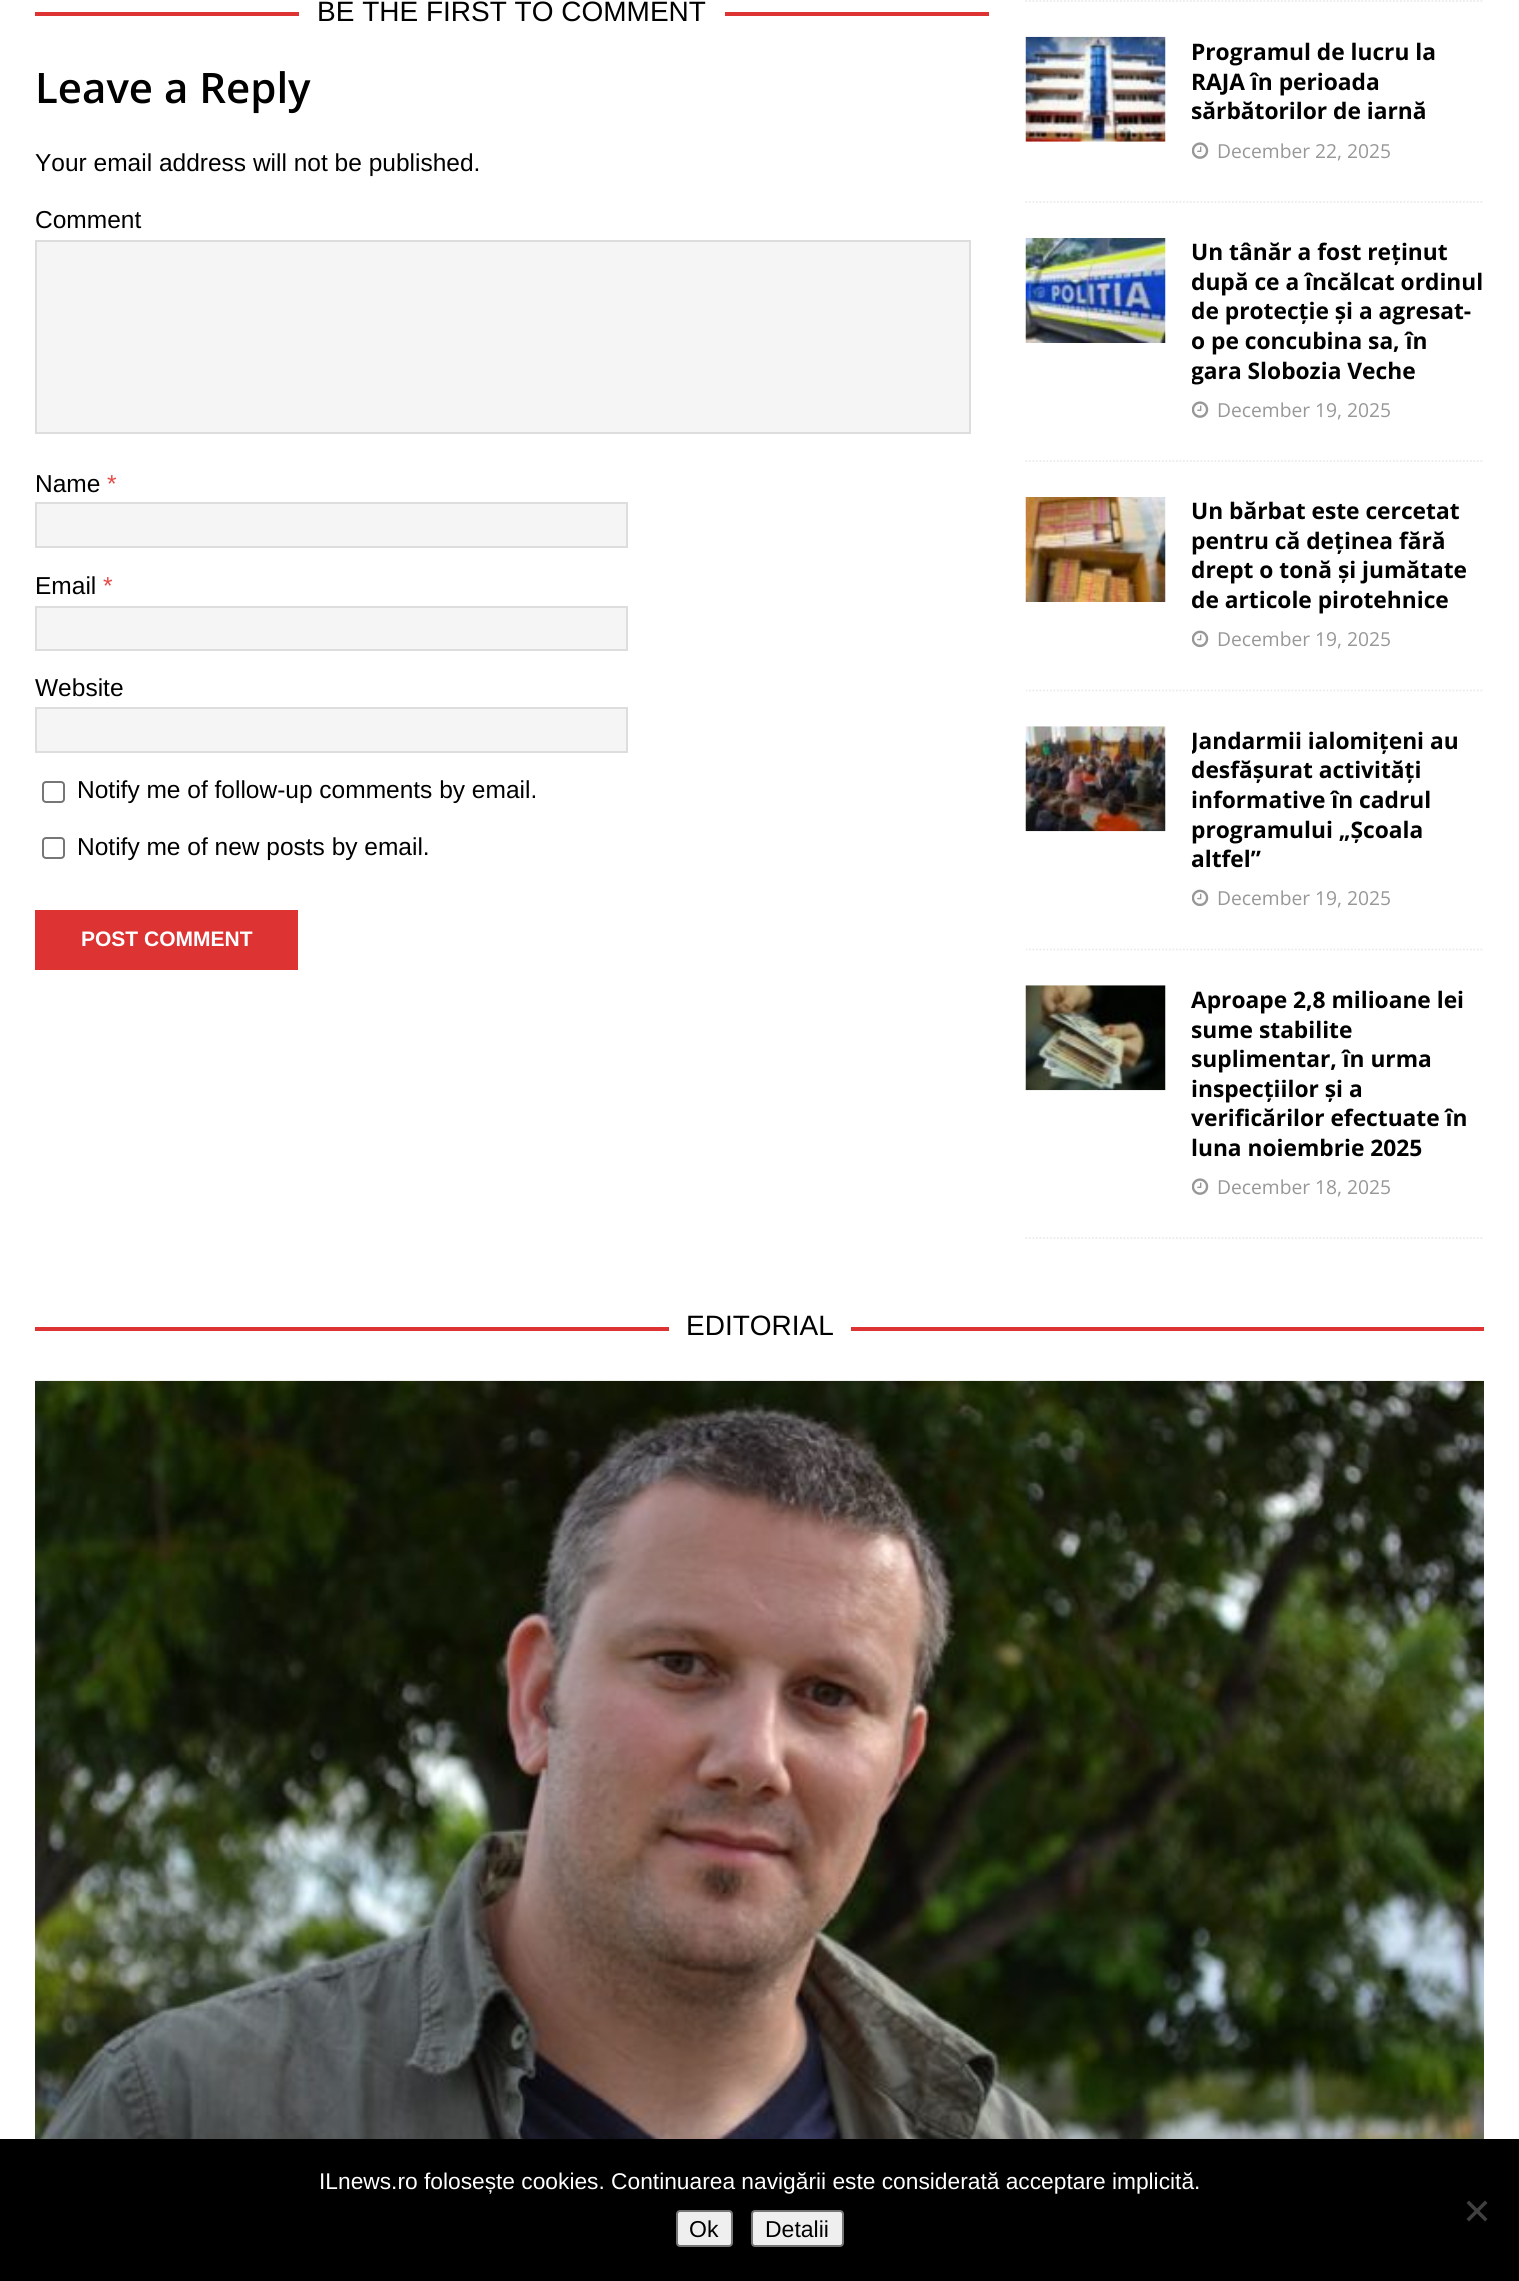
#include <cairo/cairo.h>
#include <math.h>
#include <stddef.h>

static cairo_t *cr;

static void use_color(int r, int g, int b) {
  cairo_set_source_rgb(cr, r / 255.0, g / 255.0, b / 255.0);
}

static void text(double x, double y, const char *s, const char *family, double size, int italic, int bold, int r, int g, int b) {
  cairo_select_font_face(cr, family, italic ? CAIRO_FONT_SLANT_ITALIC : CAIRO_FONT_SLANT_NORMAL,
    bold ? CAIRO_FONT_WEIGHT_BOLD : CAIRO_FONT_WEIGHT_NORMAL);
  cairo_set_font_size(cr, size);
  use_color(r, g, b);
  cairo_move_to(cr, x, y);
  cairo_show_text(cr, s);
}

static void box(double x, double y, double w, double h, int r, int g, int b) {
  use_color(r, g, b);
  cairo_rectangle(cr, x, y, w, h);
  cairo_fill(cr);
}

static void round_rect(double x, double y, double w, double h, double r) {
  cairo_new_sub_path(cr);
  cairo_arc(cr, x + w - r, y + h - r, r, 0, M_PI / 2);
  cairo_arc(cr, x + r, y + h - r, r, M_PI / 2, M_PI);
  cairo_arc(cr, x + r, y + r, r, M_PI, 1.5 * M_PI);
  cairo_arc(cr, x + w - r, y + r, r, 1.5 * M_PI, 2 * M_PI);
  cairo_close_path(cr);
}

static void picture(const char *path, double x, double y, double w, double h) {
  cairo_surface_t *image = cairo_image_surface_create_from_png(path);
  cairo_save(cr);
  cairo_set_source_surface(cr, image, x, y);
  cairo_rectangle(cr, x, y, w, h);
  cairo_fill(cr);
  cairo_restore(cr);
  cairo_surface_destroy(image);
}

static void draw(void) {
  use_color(255, 255, 255);
  cairo_paint(cr);
  box(35, 12, 954, 4, 221, 51, 51);
  box(299, 12, 426, 4, 255, 255, 255);
  use_color(245, 245, 245);
  cairo_rectangle(cr, 36, 241, 934, 192);
  cairo_fill_preserve(cr);
  use_color(221, 221, 221);
  cairo_stroke(cr);
  use_color(245, 245, 245);
  cairo_rectangle(cr, 36, 503, 591, 44);
  cairo_fill_preserve(cr);
  use_color(221, 221, 221);
  cairo_stroke(cr);
  use_color(245, 245, 245);
  cairo_rectangle(cr, 36, 607, 591, 43);
  cairo_fill_preserve(cr);
  use_color(221, 221, 221);
  cairo_stroke(cr);
  use_color(245, 245, 245);
  cairo_rectangle(cr, 36, 708, 591, 44);
  cairo_fill_preserve(cr);
  use_color(221, 221, 221);
  cairo_stroke(cr);
  round_rect(43, 782, 21, 20, 3);
  use_color(118, 118, 118);
  cairo_stroke(cr);
  round_rect(43, 838, 21, 20, 3);
  cairo_stroke(cr);
  box(35, 910, 263, 60, 221, 51, 51);
  cairo_new_path(cr);
  cairo_move_to(cr, 1025.5, 1);
  cairo_line_to(cr, 1484, 1);
  use_color(235, 235, 235);
  cairo_set_line_width(cr, 1.8);
  cairo_set_dash(cr, (double[]){1.75, 1.75}, 2, 0);
  cairo_stroke(cr);
  cairo_new_path(cr);
  cairo_move_to(cr, 1025.5, 202);
  cairo_line_to(cr, 1484, 202);
  cairo_stroke(cr);
  picture("img_01.png", 1025, 36, 141, 106);
  picture("img_02.png", 1192, 142, 17, 17);
  cairo_new_path(cr);
  cairo_move_to(cr, 1025.5, 461);
  cairo_line_to(cr, 1484, 461);
  cairo_stroke(cr);
  picture("img_03.png", 1025, 238, 141, 105);
  picture("img_02.png", 1192, 401, 17, 17);
  cairo_save(cr);
  cairo_rectangle(cr, 1026, 0, 458, 1239);
  cairo_clip(cr);
  cairo_new_path(cr);
  cairo_move_to(cr, 1025.5, 690.5);
  cairo_line_to(cr, 1484, 690.5);
  cairo_stroke(cr);
  cairo_restore(cr);
  picture("img_04.png", 1025, 497, 141, 105);
  picture("img_05.png", 1192, 630, 17, 18);
  cairo_save(cr);
  cairo_rectangle(cr, 1026, 0, 458, 1239);
  cairo_clip(cr);
  cairo_new_path(cr);
  cairo_move_to(cr, 1025.5, 949.5);
  cairo_line_to(cr, 1484, 949.5);
  cairo_stroke(cr);
  cairo_restore(cr);
  picture("img_06.png", 1025, 726, 141, 106);
  picture("img_05.png", 1192, 889, 17, 18);
  cairo_new_path(cr);
  cairo_move_to(cr, 1025.5, 1238);
  cairo_line_to(cr, 1484, 1238);
  cairo_stroke(cr);
  picture("img_07.png", 1025, 985, 141, 106);
  picture("img_02.png", 1192, 1178, 17, 17);
  box(35, 1327, 1449, 4, 221, 51, 51);
  box(669, 1327, 182, 4, 255, 255, 255);
  picture("img_08.png", 35, 1380, 1449, 759);
  box(0, 2139, 1519, 142, 0, 0, 0);
  use_color(64, 64, 64);
  cairo_new_path(cr);
  cairo_move_to(cr, 1485, 2200.5);
  cairo_line_to(cr, 1487.5, 2203);
  cairo_line_to(cr, 1469, 2221.5);
  cairo_line_to(cr, 1466.5, 2219);
  cairo_close_path(cr);
  cairo_fill(cr);
  cairo_new_path(cr);
  cairo_move_to(cr, 1466.5, 2203);
  cairo_line_to(cr, 1469, 2200.5);
  cairo_line_to(cr, 1487.5, 2219);
  cairo_line_to(cr, 1485, 2221.5);
  cairo_close_path(cr);
  cairo_fill(cr);
  use_color(239, 239, 239);
  round_rect(677, 2211, 55, 35, 3);
  cairo_fill_preserve(cr);
  use_color(118, 118, 118);
  cairo_set_line_width(cr, 2);
  cairo_set_dash(cr, NULL, 0, 0);
  cairo_stroke(cr);
  use_color(239, 239, 239);
  round_rect(752, 2211, 91, 35, 3);
  cairo_fill_preserve(cr);
  use_color(118, 118, 118);
  cairo_stroke(cr);
  text(317, 21, "BE THE FIRST TO COMMENT", "Liberation Sans", 28, 0, 0, 0, 0, 0);
  text(35, 103, "Leave a Reply", "Open Sans SemiBold", 42, 0, 0, 0, 0, 0);
  text(35, 171, "Your email address will not be published.", "Liberation Sans", 24.5, 0, 0, 0, 0, 0);
  text(35, 228, "Comment", "Liberation Sans", 24.5, 0, 0, 0, 0, 0);
  text(35, 492, "Name", "Liberation Sans", 24.5, 0, 0, 0, 0, 0);
  text(107, 492, "*", "Liberation Sans", 24.5, 0, 0, 230, 73, 70);
  text(35, 594, "Email", "Liberation Sans", 24.5, 0, 0, 0, 0, 0);
  text(103, 594, "*", "Liberation Sans", 24.5, 0, 0, 230, 73, 70);
  text(35, 696, "Website", "Liberation Sans", 24.5, 0, 0, 0, 0, 0);
  text(77, 798, "Notify me of follow-up comments by email.", "Liberation Sans", 24.5, 0, 0, 0, 0, 0);
  text(77, 855, "Notify me of new posts by email.", "Liberation Sans", 24.5, 0, 0, 0, 0, 0);
  text(81, 946, "POST COMMENT", "Liberation Sans", 21, 0, 1, 255, 255, 255);
  text(1191, 60, "Programul de lucru la", "Open Sans", 22.75, 0, 1, 0, 0, 0);
  text(1191, 90, "RAJA în perioada", "Open Sans", 22.75, 0, 1, 0, 0, 0);
  text(1191, 119, "sărbătorilor de iarnă", "Open Sans", 22.75, 0, 1, 0, 0, 0);
  text(1217, 158, "December 22, 2025", "Open Sans", 19.25, 0, 0, 151, 151, 151);
  text(1191, 260, "Un tânăr a fost reținut", "Open Sans", 22.75, 0, 1, 0, 0, 0);
  text(1191, 290, "după ce a încălcat ordinul", "Open Sans", 22.75, 0, 1, 0, 0, 0);
  text(1191, 319, "de protecție și a agresat-", "Open Sans", 22.75, 0, 1, 0, 0, 0);
  text(1191, 349, "o pe concubina sa, în", "Open Sans", 22.75, 0, 1, 0, 0, 0);
  cairo_save(cr);
  cairo_rectangle(cr, 1192, 238, 292, 187);
  cairo_clip(cr);
  text(1191, 379, "gara Slobozia Veche", "Open Sans", 22.75, 0, 1, 0, 0, 0);
  cairo_restore(cr);
  text(1217, 417, "December 19, 2025", "Open Sans", 19.25, 0, 0, 151, 151, 151);
  text(1191, 519, "Un bărbat este cercetat", "Open Sans", 22.75, 0, 1, 0, 0, 0);
  text(1191, 549, "pentru că deținea fără", "Open Sans", 22.75, 0, 1, 0, 0, 0);
  text(1191, 578, "drept o tonă și jumătate", "Open Sans", 22.75, 0, 1, 0, 0, 0);
  text(1191, 608, "de articole pirotehnice", "Open Sans", 22.75, 0, 1, 0, 0, 0);
  text(1217, 646, "December 19, 2025", "Open Sans", 19.25, 0, 0, 151, 151, 151);
  cairo_save(cr);
  cairo_rectangle(cr, 1192, 726, 292, 188);
  cairo_clip(cr);
  text(1191, 749, "Jandarmii ialomițeni au", "Open Sans", 22.75, 0, 1, 0, 0, 0);
  cairo_restore(cr);
  text(1191, 778, "desfășurat activități", "Open Sans", 22.75, 0, 1, 0, 0, 0);
  text(1191, 808, "informative în cadrul", "Open Sans", 22.75, 0, 1, 0, 0, 0);
  text(1191, 838, "programului „Școala", "Open Sans", 22.75, 0, 1, 0, 0, 0);
  text(1191, 867, "altfel”", "Open Sans", 22.75, 0, 1, 0, 0, 0);
  text(1217, 905, "December 19, 2025", "Open Sans", 19.25, 0, 0, 151, 151, 151);
  text(1191, 1008, "Aproape 2,8 milioane lei", "Open Sans", 22.75, 0, 1, 0, 0, 0);
  text(1191, 1038, "sume stabilite", "Open Sans", 22.75, 0, 1, 0, 0, 0);
  text(1191, 1067, "suplimentar, în urma", "Open Sans", 22.75, 0, 1, 0, 0, 0);
  text(1191, 1097, "inspecțiilor și a", "Open Sans", 22.75, 0, 1, 0, 0, 0);
  text(1191, 1126, "verificărilor efectuate în", "Open Sans", 22.75, 0, 1, 0, 0, 0);
  text(1191, 1156, "luna noiembrie 2025", "Open Sans", 22.75, 0, 1, 0, 0, 0);
  text(1217, 1194, "December 18, 2025", "Open Sans", 19.25, 0, 0, 151, 151, 151);
  text(686, 1335, "EDITORIAL", "Liberation Sans", 28, 0, 0, 0, 0, 0);
  text(319, 2189, "ILnews.ro folosește cookies. Continuarea navigării este considerată acceptare implicită.", "Liberation Sans", 22.75, 0, 0, 255, 255, 255);
  text(689, 2237, "Ok", "Liberation Sans", 23, 0, 0, 0, 0, 0);
  text(765, 2237, "Detalii", "Liberation Sans", 23, 0, 0, 0, 0, 0);
}

int main(void) {
  cairo_surface_t *surface = cairo_image_surface_create(CAIRO_FORMAT_RGB24, 1519, 2281);
  cr = cairo_create(surface);
  cairo_font_options_t *options = cairo_font_options_create();
  cairo_font_options_set_hint_metrics(options, CAIRO_HINT_METRICS_OFF);
  cairo_font_options_set_hint_style(options, CAIRO_HINT_STYLE_NONE);
  cairo_set_font_options(cr, options);
  cairo_set_miter_limit(cr, 4);
  draw();
  cairo_surface_write_to_png(surface, "out.png");
  cairo_font_options_destroy(options);
  cairo_destroy(cr);
  cairo_surface_destroy(surface);
  return 0;
}
